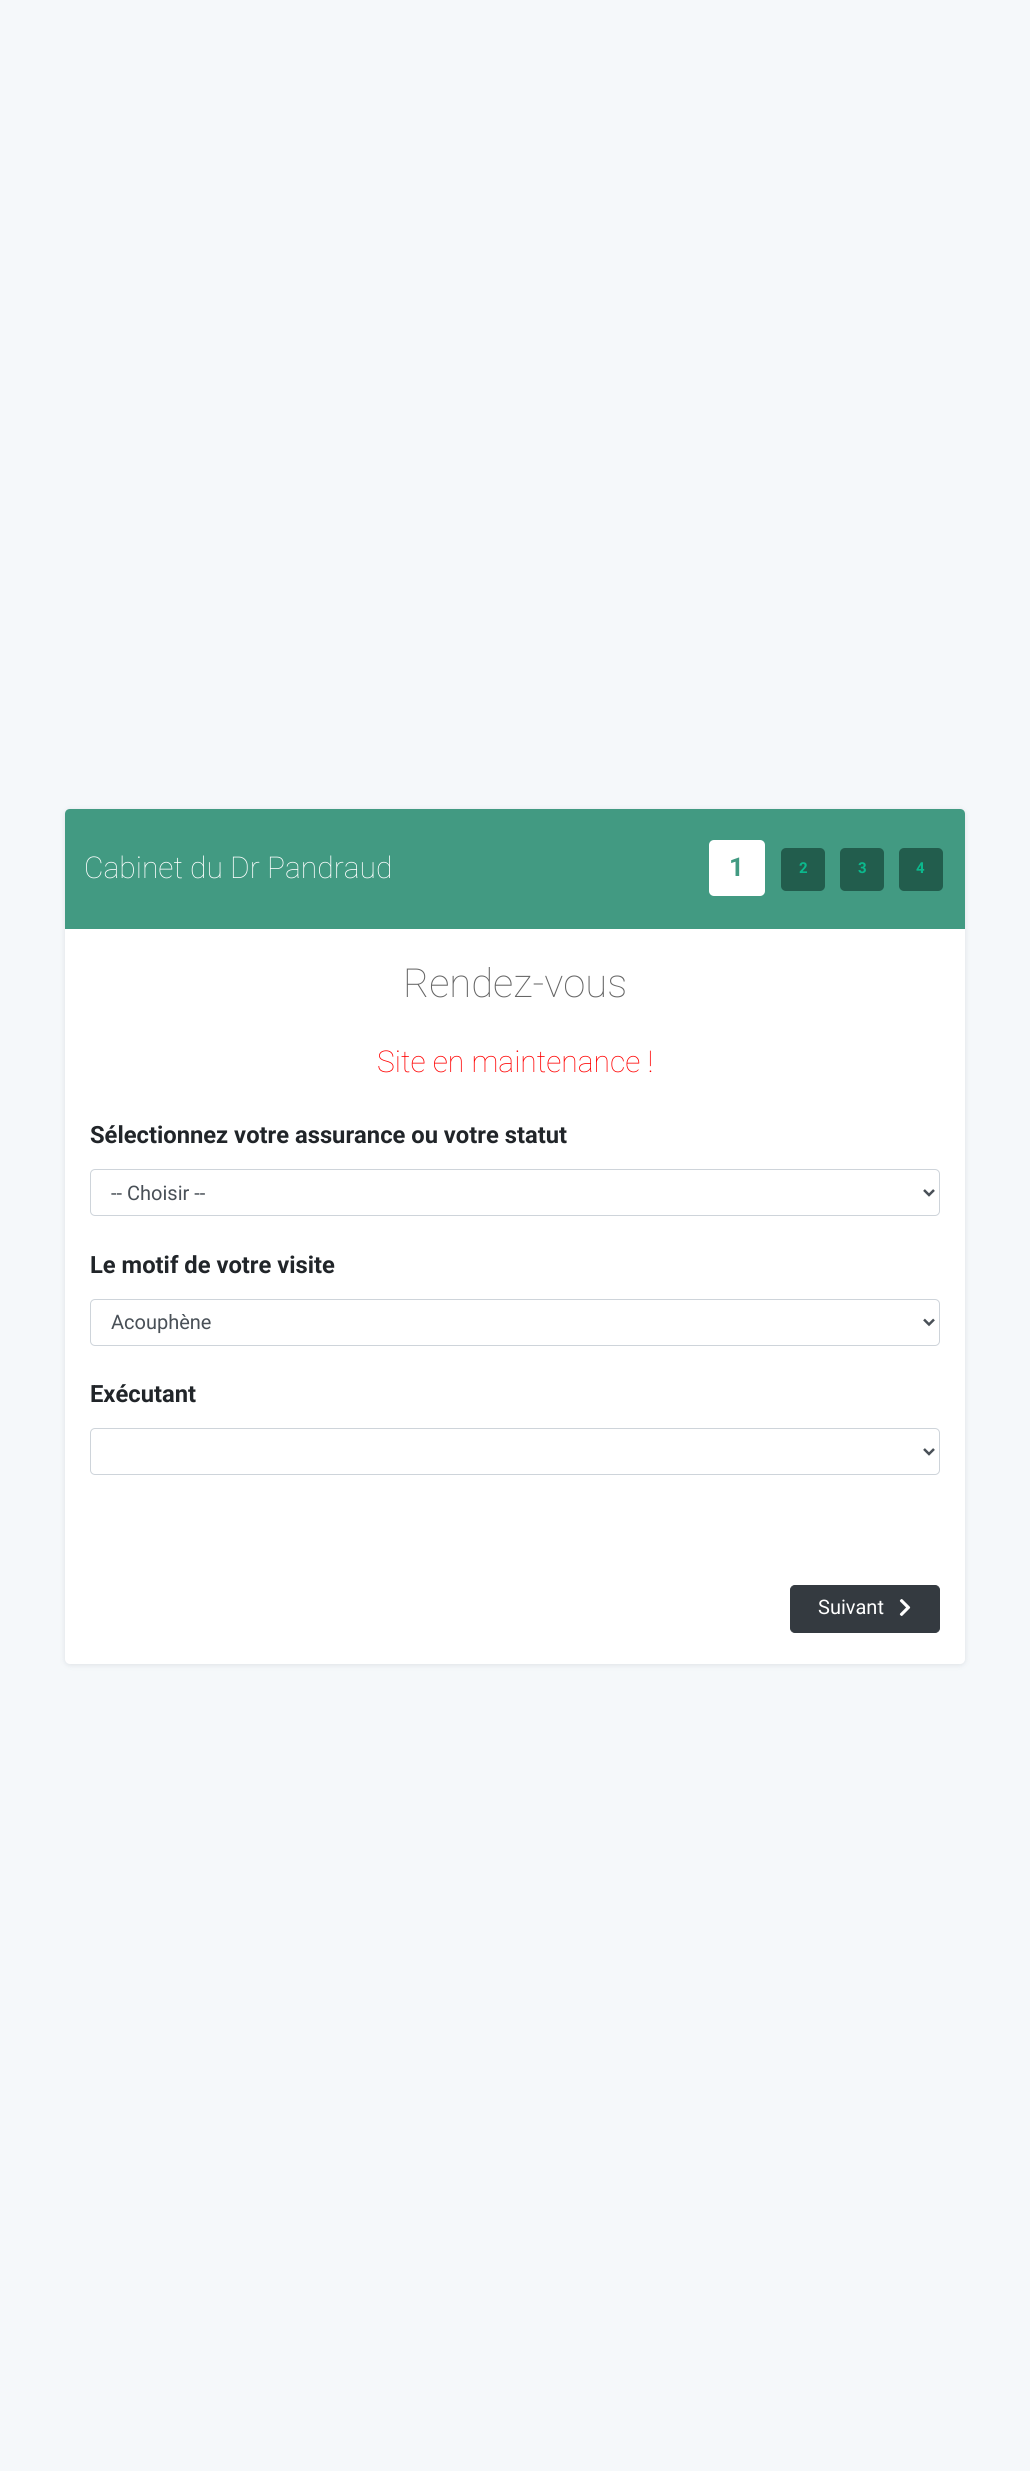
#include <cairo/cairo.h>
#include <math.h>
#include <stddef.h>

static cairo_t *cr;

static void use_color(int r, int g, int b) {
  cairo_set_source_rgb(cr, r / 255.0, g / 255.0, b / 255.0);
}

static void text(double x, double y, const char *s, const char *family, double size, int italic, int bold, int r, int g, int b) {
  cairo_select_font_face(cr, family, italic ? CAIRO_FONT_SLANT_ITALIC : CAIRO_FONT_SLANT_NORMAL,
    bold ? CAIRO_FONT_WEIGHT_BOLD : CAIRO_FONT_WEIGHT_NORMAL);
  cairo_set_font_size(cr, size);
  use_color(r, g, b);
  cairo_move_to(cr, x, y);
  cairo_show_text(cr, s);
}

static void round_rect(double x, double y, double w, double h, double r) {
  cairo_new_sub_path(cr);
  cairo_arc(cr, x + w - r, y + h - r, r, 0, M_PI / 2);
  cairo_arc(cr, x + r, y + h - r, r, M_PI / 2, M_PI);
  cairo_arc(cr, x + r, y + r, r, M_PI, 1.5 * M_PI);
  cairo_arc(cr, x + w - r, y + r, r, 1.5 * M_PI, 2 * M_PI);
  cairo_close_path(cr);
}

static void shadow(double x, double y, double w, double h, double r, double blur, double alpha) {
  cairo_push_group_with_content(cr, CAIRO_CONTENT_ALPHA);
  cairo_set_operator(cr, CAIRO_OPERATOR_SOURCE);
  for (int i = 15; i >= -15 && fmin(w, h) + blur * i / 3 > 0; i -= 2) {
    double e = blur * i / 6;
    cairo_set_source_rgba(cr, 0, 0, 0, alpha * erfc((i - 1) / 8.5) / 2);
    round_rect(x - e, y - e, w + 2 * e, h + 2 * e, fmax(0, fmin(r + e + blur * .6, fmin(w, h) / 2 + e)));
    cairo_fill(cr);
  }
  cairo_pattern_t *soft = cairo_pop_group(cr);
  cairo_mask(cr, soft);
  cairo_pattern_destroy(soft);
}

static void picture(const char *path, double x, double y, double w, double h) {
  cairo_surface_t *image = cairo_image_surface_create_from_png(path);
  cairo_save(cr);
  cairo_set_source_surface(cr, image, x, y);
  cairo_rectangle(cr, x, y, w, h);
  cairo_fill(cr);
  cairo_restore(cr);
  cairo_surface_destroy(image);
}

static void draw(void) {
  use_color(245, 248, 250);
  cairo_paint(cr);
  use_color(45, 62, 80);
  shadow(65, 810, 900, 855, 5, 3, 0.12);
  use_color(255, 255, 255);
  round_rect(65, 809, 900, 855, 5);
  cairo_fill(cr);
  use_color(66, 154, 130);
  cairo_new_path(cr);
  cairo_move_to(cr, 70, 809);
  cairo_line_to(cr, 960, 809);
  cairo_curve_to(cr, 963, 809, 965, 811, 965, 814);
  cairo_line_to(cr, 965, 929);
  cairo_line_to(cr, 65, 929);
  cairo_line_to(cr, 65, 814);
  cairo_curve_to(cr, 65, 811, 67, 809, 70, 809);
  cairo_close_path(cr);
  cairo_fill(cr);
  use_color(255, 255, 255);
  round_rect(709, 840, 56, 56, 5);
  cairo_fill(cr);
  use_color(34, 93, 77);
  round_rect(781, 848, 44, 43, 5);
  cairo_fill(cr);
  round_rect(840, 848, 44, 43, 5);
  cairo_fill(cr);
  round_rect(899, 848, 44, 43, 5);
  cairo_fill(cr);
  round_rect(90.5, 1169.5, 849, 46, 4.5);
  use_color(206, 212, 218);
  cairo_set_line_width(cr, 1);
  cairo_stroke(cr);
  cairo_new_path(cr);
  cairo_move_to(cr, 924, 1190);
  cairo_line_to(cr, 929, 1195);
  cairo_line_to(cr, 934, 1190);
  use_color(73, 80, 87);
  cairo_set_line_width(cr, 2.5);
  cairo_stroke(cr);
  round_rect(90.5, 1299.5, 849, 46, 4.5);
  use_color(206, 212, 218);
  cairo_set_line_width(cr, 1);
  cairo_stroke(cr);
  cairo_new_path(cr);
  cairo_move_to(cr, 924, 1319.5);
  cairo_line_to(cr, 929, 1324.5);
  cairo_line_to(cr, 934, 1319.5);
  use_color(73, 80, 87);
  cairo_set_line_width(cr, 2.5);
  cairo_stroke(cr);
  round_rect(90.5, 1428.5, 849, 46, 4.5);
  use_color(206, 212, 218);
  cairo_set_line_width(cr, 1);
  cairo_stroke(cr);
  cairo_new_path(cr);
  cairo_move_to(cr, 924, 1449);
  cairo_line_to(cr, 929, 1454);
  cairo_line_to(cr, 934, 1449);
  use_color(73, 80, 87);
  cairo_set_line_width(cr, 2.5);
  cairo_stroke(cr);
  use_color(52, 58, 64);
  round_rect(790.5, 1585.5, 149, 47, 4.5);
  cairo_fill_preserve(cr);
  cairo_set_line_width(cr, 1);
  cairo_stroke(cr);
  picture("img_01.png", 899, 1599, 12, 17);
  text(84, 878, "Cabinet du Dr Pandraud", "Roboto Thin", 30, 0, 0, 255, 255, 255);
  text(729, 876, "1", "Roboto", 26, 0, 1, 66, 154, 130);
  text(799, 873, "2", "Roboto", 15, 0, 1, 11, 185, 141);
  text(858, 873, "3", "Roboto", 15, 0, 1, 11, 185, 141);
  text(916, 873, "4", "Roboto", 15, 0, 1, 11, 185, 141);
  text(403, 997, "Rendez-vous", "Roboto Thin", 40, 0, 0, 102, 102, 102);
  text(377, 1072, "Site en maintenance !", "Roboto Thin", 30, 0, 0, 255, 0, 0);
  text(90, 1143, "Sélectionnez votre assurance ou votre statut", "Roboto", 23.75, 0, 1, 33, 37, 41);
  text(111, 1200, "-- Choisir --", "Roboto", 20, 0, 0, 73, 80, 87);
  text(90, 1273, "Le motif de votre visite", "Roboto", 23.75, 0, 1, 33, 37, 41);
  text(111, 1329, "Acouphène", "Roboto", 20, 0, 0, 73, 80, 87);
  text(90, 1402, "Exécutant", "Roboto", 23.75, 0, 1, 33, 37, 41);
  text(818, 1614, "Suivant", "Roboto", 20, 0, 0, 255, 255, 255);
}

int main(void) {
  cairo_surface_t *surface = cairo_image_surface_create(CAIRO_FORMAT_RGB24, 1030, 2471);
  cr = cairo_create(surface);
  cairo_font_options_t *options = cairo_font_options_create();
  cairo_font_options_set_hint_metrics(options, CAIRO_HINT_METRICS_OFF);
  cairo_font_options_set_hint_style(options, CAIRO_HINT_STYLE_NONE);
  cairo_set_font_options(cr, options);
  cairo_set_miter_limit(cr, 4);
  draw();
  cairo_surface_write_to_png(surface, "out.png");
  cairo_font_options_destroy(options);
  cairo_destroy(cr);
  cairo_surface_destroy(surface);
  return 0;
}
